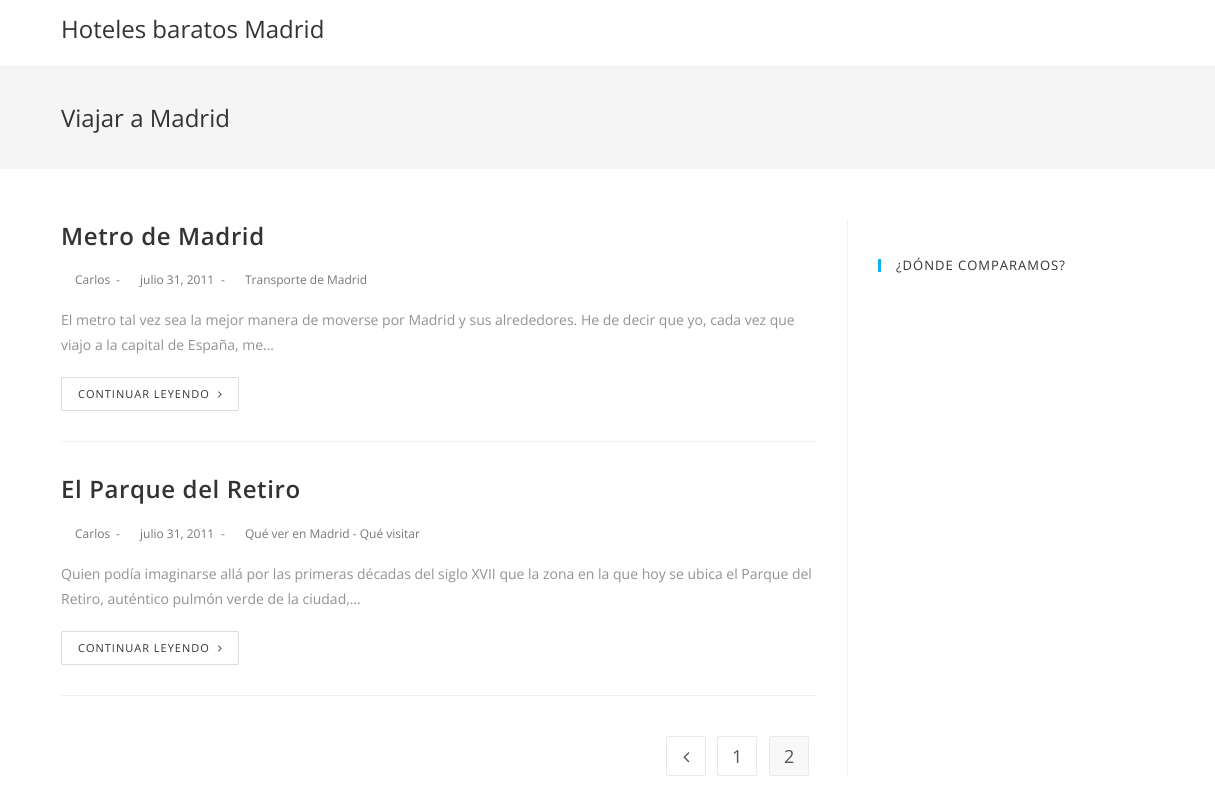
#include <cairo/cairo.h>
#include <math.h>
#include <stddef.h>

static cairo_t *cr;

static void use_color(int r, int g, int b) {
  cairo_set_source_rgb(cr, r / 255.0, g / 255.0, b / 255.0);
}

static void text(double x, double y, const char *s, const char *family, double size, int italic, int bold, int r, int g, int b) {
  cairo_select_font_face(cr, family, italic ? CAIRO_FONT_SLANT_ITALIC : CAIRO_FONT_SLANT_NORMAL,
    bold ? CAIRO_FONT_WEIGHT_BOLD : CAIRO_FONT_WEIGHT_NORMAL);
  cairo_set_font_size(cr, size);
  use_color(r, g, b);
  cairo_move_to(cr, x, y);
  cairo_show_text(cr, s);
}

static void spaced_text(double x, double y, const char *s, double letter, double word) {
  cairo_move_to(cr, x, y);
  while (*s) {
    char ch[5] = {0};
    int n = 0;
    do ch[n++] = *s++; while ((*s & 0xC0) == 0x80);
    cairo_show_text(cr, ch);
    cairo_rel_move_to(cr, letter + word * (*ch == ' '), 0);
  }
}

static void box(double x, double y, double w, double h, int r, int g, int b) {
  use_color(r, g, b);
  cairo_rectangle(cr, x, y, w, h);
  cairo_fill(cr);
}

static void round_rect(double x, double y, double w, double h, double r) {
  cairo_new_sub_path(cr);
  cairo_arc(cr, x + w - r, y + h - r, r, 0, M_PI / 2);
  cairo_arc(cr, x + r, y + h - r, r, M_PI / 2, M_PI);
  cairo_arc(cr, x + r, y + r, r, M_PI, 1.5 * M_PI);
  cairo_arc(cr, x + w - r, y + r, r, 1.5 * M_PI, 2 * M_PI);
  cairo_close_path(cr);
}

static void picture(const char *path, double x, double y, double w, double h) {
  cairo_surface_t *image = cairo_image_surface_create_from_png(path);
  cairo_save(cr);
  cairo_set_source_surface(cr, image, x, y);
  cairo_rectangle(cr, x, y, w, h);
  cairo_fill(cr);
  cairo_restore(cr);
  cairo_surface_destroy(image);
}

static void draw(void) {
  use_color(255, 255, 255);
  cairo_paint(cr);
  box(0, 66, 1215, 1, 241, 241, 241);
  box(0, 67, 1215, 102, 245, 245, 245);
  box(847, 219, 1, 557, 241, 241, 241);
  box(61, 441, 756, 1, 241, 241, 241);
  round_rect(61.5, 377.5, 177, 33, 1.5);
  use_color(221, 221, 221);
  cairo_set_line_width(cr, 1);
  cairo_stroke(cr);
  picture("img_01.png", 218, 391, 4, 7);
  box(61, 695, 756, 1, 241, 241, 241);
  round_rect(61.5, 631.5, 177, 33, 1.5);
  use_color(221, 221, 221);
  cairo_stroke(cr);
  picture("img_01.png", 218, 645, 4, 7);
  round_rect(666.5, 736.5, 39, 39, 1.5);
  use_color(233, 233, 233);
  cairo_stroke(cr);
  picture("img_02.png", 683, 752, 7, 11);
  round_rect(717.5, 736.5, 39, 39, 1.5);
  cairo_stroke(cr);
  use_color(248, 248, 248);
  round_rect(769.5, 736.5, 39, 39, 1.5);
  cairo_fill_preserve(cr);
  use_color(233, 233, 233);
  cairo_stroke(cr);
  box(878, 259, 3, 13, 19, 175, 240);
  text(61, 38, "Hoteles baratos Madrid", "Open Sans", 24, 0, 0, 51, 51, 51);
  text(61, 127, "Viajar a Madrid", "Open Sans", 24, 0, 0, 51, 51, 51);
  cairo_select_font_face(cr, "Open Sans SemiBold", CAIRO_FONT_SLANT_NORMAL, CAIRO_FONT_WEIGHT_NORMAL);
  spaced_text(61, 245, "Metro de Madrid", 0.6, 0);
  text(75, 284, "Carlos", "Open Sans", 12, 0, 0, 119, 119, 119);
  text(116, 284, "-", "Open Sans", 12, 0, 0, 119, 119, 119);
  text(140, 284, "julio 31, 2011", "Open Sans", 12, 0, 0, 119, 119, 119);
  text(221, 284, "-", "Open Sans", 12, 0, 0, 119, 119, 119);
  text(245, 284, "Transporte de Madrid", "Open Sans", 12, 0, 0, 119, 119, 119);
  text(61, 325, "El metro tal vez sea la mejor manera de moverse por Madrid y sus alrededores. He de decir que yo, cada vez que", "Open Sans", 14, 0, 0, 146, 146, 146);
  text(61, 350, "viajo a la capital de España, me…", "Open Sans", 14, 0, 0, 146, 146, 146);
  cairo_set_font_size(cr, 11);
  use_color(51, 51, 51);
  spaced_text(78, 398, "CONTINUAR LEYENDO", 1, 0);
  cairo_select_font_face(cr, "Open Sans SemiBold", CAIRO_FONT_SLANT_NORMAL, CAIRO_FONT_WEIGHT_NORMAL);
  cairo_set_font_size(cr, 24);
  spaced_text(61, 498, "El Parque del Retiro", 0.6, 0);
  text(75, 538, "Carlos", "Open Sans", 12, 0, 0, 119, 119, 119);
  text(116, 538, "-", "Open Sans", 12, 0, 0, 119, 119, 119);
  text(140, 538, "julio 31, 2011", "Open Sans", 12, 0, 0, 119, 119, 119);
  text(221, 538, "-", "Open Sans", 12, 0, 0, 119, 119, 119);
  text(245, 538, "Qué ver en Madrid - Qué visitar", "Open Sans", 12, 0, 0, 119, 119, 119);
  text(61, 579, "Quien podía imaginarse allá por las primeras décadas del siglo XVII que la zona en la que hoy se ubica el Parque del", "Open Sans", 14, 0, 0, 146, 146, 146);
  text(61, 604, "Retiro, auténtico pulmón verde de la ciudad,…", "Open Sans", 14, 0, 0, 146, 146, 146);
  cairo_set_font_size(cr, 11);
  use_color(51, 51, 51);
  spaced_text(78, 652, "CONTINUAR LEYENDO", 1, 0);
  text(732, 763, "1", "Open Sans", 18, 0, 0, 85, 85, 85);
  text(784, 763, "2", "Open Sans", 18, 0, 0, 85, 85, 85);
  cairo_set_font_size(cr, 13);
  use_color(51, 51, 51);
  spaced_text(896, 270, "¿DÓNDE COMPARAMOS?", 1, 0);
}

int main(void) {
  cairo_surface_t *surface = cairo_image_surface_create(CAIRO_FORMAT_RGB24, 1215, 803);
  cr = cairo_create(surface);
  cairo_font_options_t *options = cairo_font_options_create();
  cairo_font_options_set_hint_metrics(options, CAIRO_HINT_METRICS_OFF);
  cairo_font_options_set_hint_style(options, CAIRO_HINT_STYLE_NONE);
  cairo_set_font_options(cr, options);
  cairo_set_miter_limit(cr, 4);
  draw();
  cairo_surface_write_to_png(surface, "out.png");
  cairo_font_options_destroy(options);
  cairo_destroy(cr);
  cairo_surface_destroy(surface);
  return 0;
}
